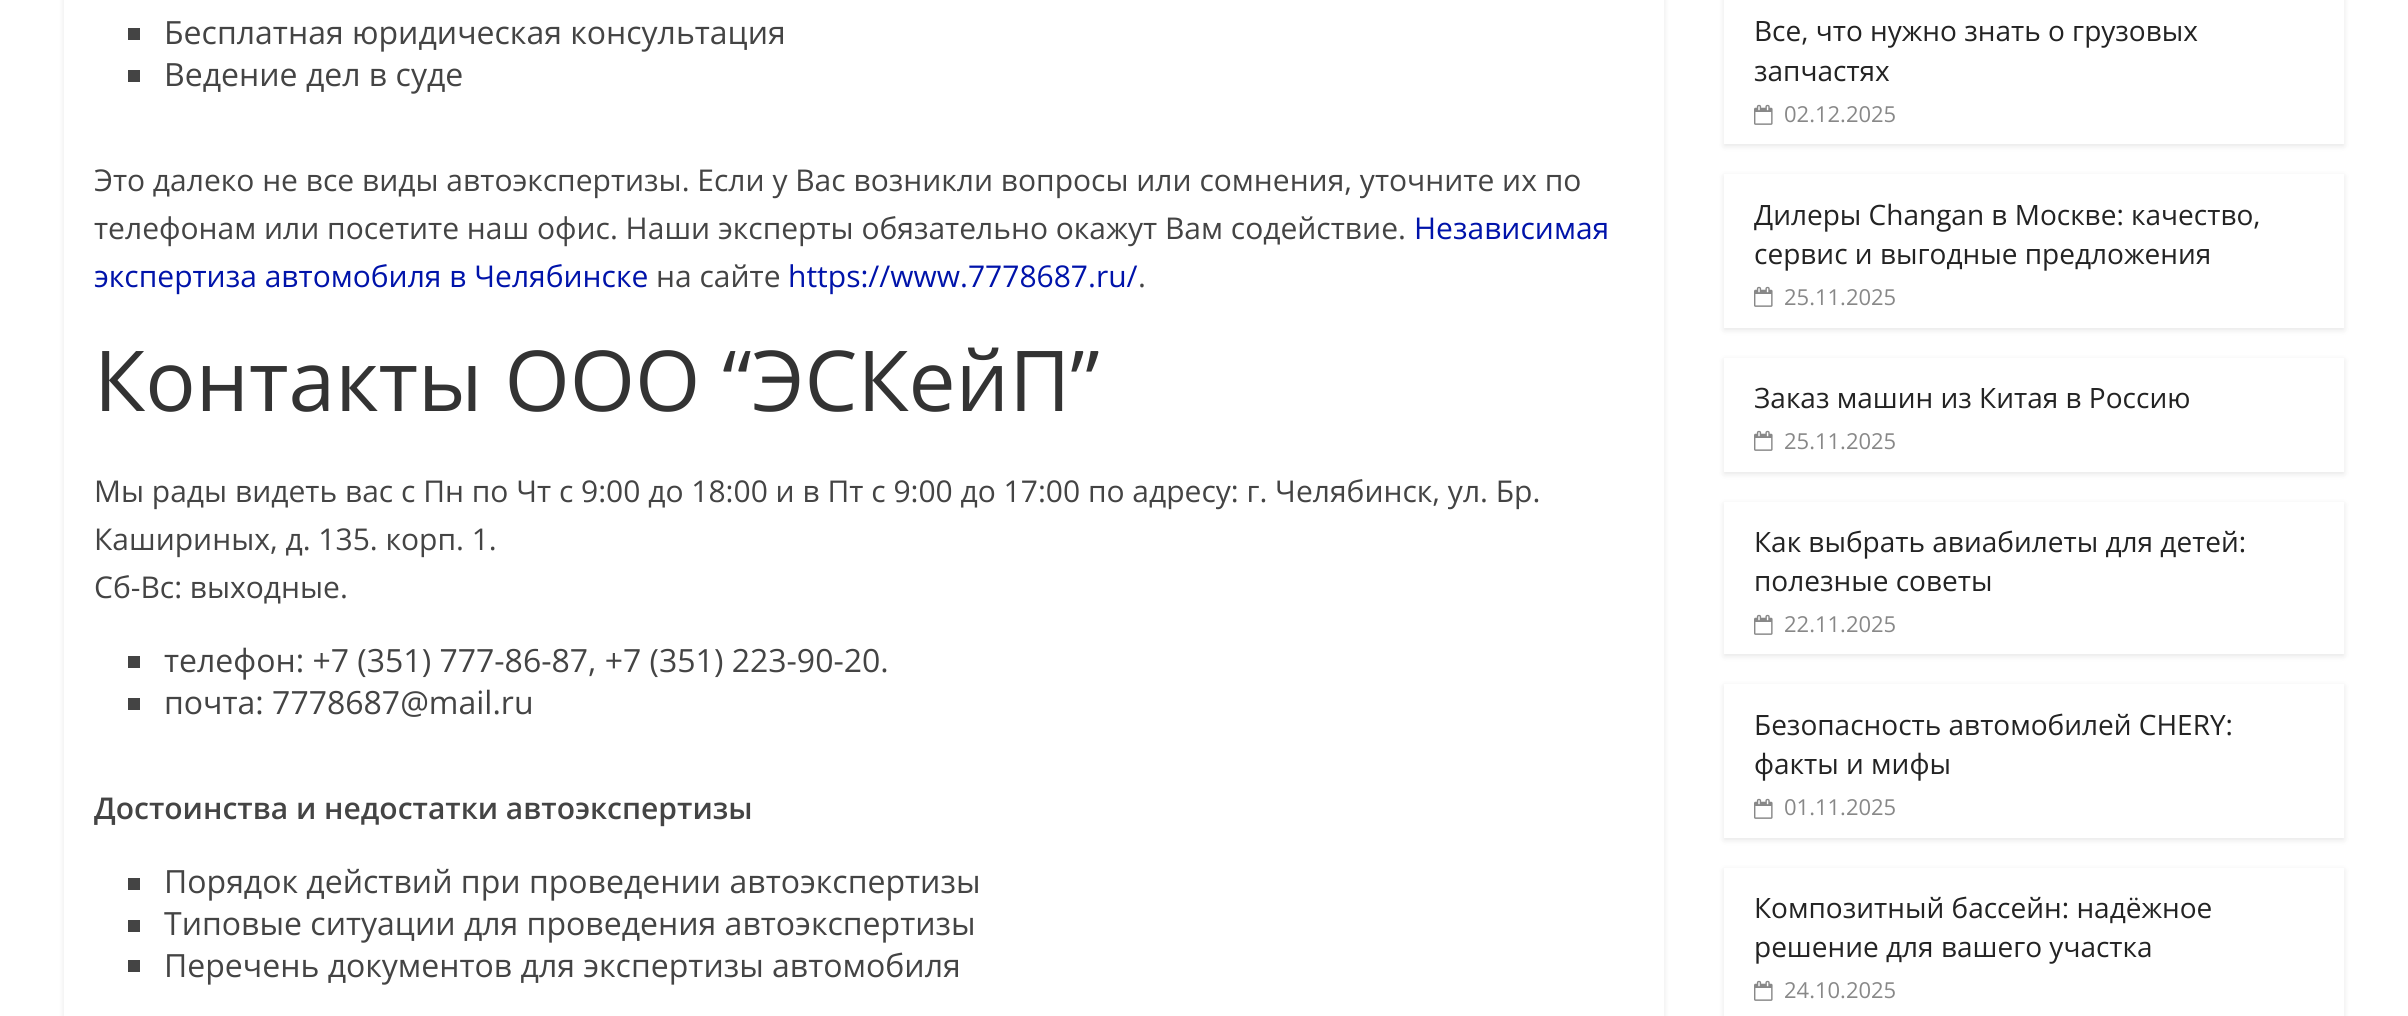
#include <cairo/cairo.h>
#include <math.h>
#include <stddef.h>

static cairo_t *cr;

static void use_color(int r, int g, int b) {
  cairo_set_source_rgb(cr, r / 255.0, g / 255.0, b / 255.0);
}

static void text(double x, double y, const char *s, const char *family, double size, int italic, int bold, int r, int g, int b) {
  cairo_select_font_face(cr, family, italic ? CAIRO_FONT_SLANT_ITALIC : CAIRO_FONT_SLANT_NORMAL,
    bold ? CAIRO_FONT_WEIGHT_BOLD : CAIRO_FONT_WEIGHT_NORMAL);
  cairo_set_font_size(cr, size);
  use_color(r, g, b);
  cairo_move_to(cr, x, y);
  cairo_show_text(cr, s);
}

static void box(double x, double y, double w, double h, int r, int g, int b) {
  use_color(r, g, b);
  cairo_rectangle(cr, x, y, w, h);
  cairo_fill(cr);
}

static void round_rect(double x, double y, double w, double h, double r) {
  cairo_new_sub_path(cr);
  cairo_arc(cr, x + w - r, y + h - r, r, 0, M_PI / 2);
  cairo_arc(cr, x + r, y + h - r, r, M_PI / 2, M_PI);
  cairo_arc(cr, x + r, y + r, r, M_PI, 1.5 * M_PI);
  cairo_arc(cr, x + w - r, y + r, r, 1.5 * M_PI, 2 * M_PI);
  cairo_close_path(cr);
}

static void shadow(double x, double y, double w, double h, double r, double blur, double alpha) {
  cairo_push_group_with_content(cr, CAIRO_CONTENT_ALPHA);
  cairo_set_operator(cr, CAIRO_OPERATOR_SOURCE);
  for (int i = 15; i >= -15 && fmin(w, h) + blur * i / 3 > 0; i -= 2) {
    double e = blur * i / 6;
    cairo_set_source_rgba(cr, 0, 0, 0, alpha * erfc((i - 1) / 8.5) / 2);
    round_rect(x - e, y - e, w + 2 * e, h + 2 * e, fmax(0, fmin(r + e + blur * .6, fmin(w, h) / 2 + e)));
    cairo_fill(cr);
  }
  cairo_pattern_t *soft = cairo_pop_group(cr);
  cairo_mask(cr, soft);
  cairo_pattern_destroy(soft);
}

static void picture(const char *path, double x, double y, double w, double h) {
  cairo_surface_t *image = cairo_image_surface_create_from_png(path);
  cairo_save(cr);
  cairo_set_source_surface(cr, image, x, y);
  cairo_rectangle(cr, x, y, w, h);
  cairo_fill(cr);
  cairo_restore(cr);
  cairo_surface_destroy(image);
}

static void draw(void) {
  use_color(255, 255, 255);
  cairo_paint(cr);
  cairo_save(cr);
  cairo_set_fill_rule(cr, CAIRO_FILL_RULE_EVEN_ODD);
  cairo_new_path(cr);
  cairo_move_to(cr, 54, 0);
  cairo_line_to(cr, 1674, 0);
  cairo_line_to(cr, 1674, 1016);
  cairo_line_to(cr, 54, 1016);
  cairo_close_path(cr);
  cairo_move_to(cr, 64, -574);
  cairo_line_to(cr, 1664, -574);
  cairo_line_to(cr, 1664, 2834);
  cairo_line_to(cr, 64, 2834);
  cairo_close_path(cr);
  cairo_clip(cr);
  use_color(0, 0, 0);
  shadow(64, -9, 1600, 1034, 0, 3, 0.1);
  cairo_restore(cr);
  box(128, 28, 12, 12, 68, 68, 68);
  box(128, 70, 12, 12, 68, 68, 68);
  box(128, 656, 12, 12, 68, 68, 68);
  box(128, 698, 12, 12, 68, 68, 68);
  box(128, 878, 12, 12, 68, 68, 68);
  box(128, 920, 12, 12, 68, 68, 68);
  box(128, 960, 12, 12, 68, 68, 68);
  cairo_save(cr);
  cairo_set_fill_rule(cr, CAIRO_FILL_RULE_EVEN_ODD);
  cairo_new_path(cr);
  cairo_move_to(cr, 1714, 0);
  cairo_line_to(cr, 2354, 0);
  cairo_line_to(cr, 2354, 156);
  cairo_line_to(cr, 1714, 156);
  cairo_close_path(cr);
  cairo_move_to(cr, 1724, -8);
  cairo_line_to(cr, 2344, -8);
  cairo_line_to(cr, 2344, 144);
  cairo_line_to(cr, 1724, 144);
  cairo_close_path(cr);
  cairo_clip(cr);
  use_color(0, 0, 0);
  shadow(1724, -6, 620, 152, 0, 3, 0.1);
  cairo_restore(cr);
  picture("img_01.png", 1754, 104, 19, 21);
  cairo_save(cr);
  cairo_set_fill_rule(cr, CAIRO_FILL_RULE_EVEN_ODD);
  cairo_new_path(cr);
  cairo_move_to(cr, 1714, 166);
  cairo_line_to(cr, 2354, 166);
  cairo_line_to(cr, 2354, 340);
  cairo_line_to(cr, 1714, 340);
  cairo_close_path(cr);
  cairo_move_to(cr, 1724, 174);
  cairo_line_to(cr, 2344, 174);
  cairo_line_to(cr, 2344, 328);
  cairo_line_to(cr, 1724, 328);
  cairo_close_path(cr);
  cairo_clip(cr);
  use_color(0, 0, 0);
  shadow(1724, 176, 620, 154, 0, 3, 0.1);
  cairo_restore(cr);
  picture("img_01.png", 1754, 286, 19, 21);
  cairo_save(cr);
  cairo_set_fill_rule(cr, CAIRO_FILL_RULE_EVEN_ODD);
  cairo_new_path(cr);
  cairo_move_to(cr, 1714, 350);
  cairo_line_to(cr, 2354, 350);
  cairo_line_to(cr, 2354, 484);
  cairo_line_to(cr, 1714, 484);
  cairo_close_path(cr);
  cairo_move_to(cr, 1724, 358);
  cairo_line_to(cr, 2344, 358);
  cairo_line_to(cr, 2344, 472);
  cairo_line_to(cr, 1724, 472);
  cairo_close_path(cr);
  cairo_clip(cr);
  use_color(0, 0, 0);
  shadow(1724, 360, 620, 114, 0, 3, 0.1);
  cairo_restore(cr);
  picture("img_01.png", 1754, 430, 19, 21);
  cairo_save(cr);
  cairo_set_fill_rule(cr, CAIRO_FILL_RULE_EVEN_ODD);
  cairo_new_path(cr);
  cairo_move_to(cr, 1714, 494);
  cairo_line_to(cr, 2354, 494);
  cairo_line_to(cr, 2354, 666);
  cairo_line_to(cr, 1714, 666);
  cairo_close_path(cr);
  cairo_move_to(cr, 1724, 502);
  cairo_line_to(cr, 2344, 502);
  cairo_line_to(cr, 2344, 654);
  cairo_line_to(cr, 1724, 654);
  cairo_close_path(cr);
  cairo_clip(cr);
  use_color(0, 0, 0);
  shadow(1724, 504, 620, 152, 0, 3, 0.1);
  cairo_restore(cr);
  picture("img_01.png", 1754, 614, 19, 21);
  cairo_save(cr);
  cairo_set_fill_rule(cr, CAIRO_FILL_RULE_EVEN_ODD);
  cairo_new_path(cr);
  cairo_move_to(cr, 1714, 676);
  cairo_line_to(cr, 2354, 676);
  cairo_line_to(cr, 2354, 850);
  cairo_line_to(cr, 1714, 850);
  cairo_close_path(cr);
  cairo_move_to(cr, 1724, 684);
  cairo_line_to(cr, 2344, 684);
  cairo_line_to(cr, 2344, 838);
  cairo_line_to(cr, 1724, 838);
  cairo_close_path(cr);
  cairo_clip(cr);
  use_color(0, 0, 0);
  shadow(1724, 686, 620, 154, 0, 3, 0.1);
  cairo_restore(cr);
  picture("img_01.png", 1754, 798, 19, 21);
  cairo_save(cr);
  cairo_set_fill_rule(cr, CAIRO_FILL_RULE_EVEN_ODD);
  cairo_new_path(cr);
  cairo_move_to(cr, 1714, 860);
  cairo_line_to(cr, 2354, 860);
  cairo_line_to(cr, 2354, 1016);
  cairo_line_to(cr, 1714, 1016);
  cairo_close_path(cr);
  cairo_move_to(cr, 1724, 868);
  cairo_line_to(cr, 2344, 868);
  cairo_line_to(cr, 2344, 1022);
  cairo_line_to(cr, 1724, 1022);
  cairo_close_path(cr);
  cairo_clip(cr);
  use_color(0, 0, 0);
  shadow(1724, 870, 620, 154, 0, 3, 0.1);
  cairo_restore(cr);
  picture("img_01.png", 1754, 980, 19, 21);
  text(164, 44, "Бесплатная юридическая консультация", "Open Sans", 32, 0, 0, 68, 68, 68);
  text(164, 86, "Ведение дел в суде", "Open Sans", 32, 0, 0, 68, 68, 68);
  text(94, 191, "Это далеко не все виды автоэкспертизы. Если у Вас возникли вопросы или сомнения, уточните их по", "Open Sans", 30, 0, 0, 68, 68, 68);
  text(94, 239, "телефонам или посетите наш офис. Наши эксперты обязательно окажут Вам содействие.", "Open Sans", 30, 0, 0, 68, 68, 68);
  text(1414, 239, "Независимая", "Open Sans", 30, 0, 0, 0, 19, 170);
  text(94, 287, "экспертиза автомобиля в Челябинске", "Open Sans", 30, 0, 0, 0, 19, 170);
  text(656, 287, "на сайте", "Open Sans", 30, 0, 0, 68, 68, 68);
  text(788, 287, "https://www.7778687.ru/", "Open Sans", 30, 0, 0, 0, 19, 170);
  text(1138, 287, ".", "Open Sans", 30, 0, 0, 68, 68, 68);
  text(94, 411, "Контакты ООО “ЭСКейП”", "Open Sans", 84, 0, 0, 51, 51, 51);
  text(94, 502, "Мы рады видеть вас с Пн по Чт с 9:00 до 18:00 и в Пт с 9:00 до 17:00 по адресу: г. Челябинск, ул. Бр.", "Open Sans", 30, 0, 0, 68, 68, 68);
  text(94, 550, "Кашириных, д. 135. корп. 1.", "Open Sans", 30, 0, 0, 68, 68, 68);
  text(94, 598, "Сб-Вс: выходные.", "Open Sans", 30, 0, 0, 68, 68, 68);
  text(164, 672, "телефон: +7 (351) 777-86-87, +7 (351) 223-90-20.", "Open Sans", 32, 0, 0, 68, 68, 68);
  text(164, 714, "почта: 7778687@mail.ru", "Open Sans", 32, 0, 0, 68, 68, 68);
  text(94, 819, "Достоинства и недостатки автоэкспертизы", "Open Sans SemiBold", 30, 0, 0, 68, 68, 68);
  text(164, 893, "Порядок действий при проведении автоэкспертизы", "Open Sans", 32, 0, 0, 68, 68, 68);
  text(164, 935, "Типовые ситуации для проведения автоэкспертизы", "Open Sans", 32, 0, 0, 68, 68, 68);
  text(164, 977, "Перечень документов для экспертизы автомобиля", "Open Sans", 32, 0, 0, 68, 68, 68);
  text(1754, 41, "Все, что нужно знать о грузовых", "Open Sans", 28, 0, 0, 35, 35, 35);
  text(1754, 81, "запчастях", "Open Sans", 28, 0, 0, 35, 35, 35);
  text(1784, 122, "02.12.2025", "Open Sans", 22, 0, 0, 136, 136, 136);
  text(1754, 225, "Дилеры Changan в Москве: качество,", "Open Sans", 28, 0, 0, 35, 35, 35);
  text(1754, 264, "сервис и выгодные предложения", "Open Sans", 28, 0, 0, 35, 35, 35);
  text(1784, 305, "25.11.2025", "Open Sans", 22, 0, 0, 136, 136, 136);
  text(1754, 408, "Заказ машин из Китая в Россию", "Open Sans", 28, 0, 0, 35, 35, 35);
  text(1784, 449, "25.11.2025", "Open Sans", 22, 0, 0, 136, 136, 136);
  text(1754, 552, "Как выбрать авиабилеты для детей:", "Open Sans", 28, 0, 0, 35, 35, 35);
  text(1754, 591, "полезные советы", "Open Sans", 28, 0, 0, 35, 35, 35);
  text(1784, 632, "22.11.2025", "Open Sans", 22, 0, 0, 136, 136, 136);
  text(1754, 735, "Безопасность автомобилей CHERY:", "Open Sans", 28, 0, 0, 35, 35, 35);
  text(1754, 774, "факты и мифы", "Open Sans", 28, 0, 0, 35, 35, 35);
  text(1784, 815, "01.11.2025", "Open Sans", 22, 0, 0, 136, 136, 136);
  text(1754, 918, "Композитный бассейн: надёжное", "Open Sans", 28, 0, 0, 35, 35, 35);
  text(1754, 957, "решение для вашего участка", "Open Sans", 28, 0, 0, 35, 35, 35);
  text(1784, 998, "24.10.2025", "Open Sans", 22, 0, 0, 136, 136, 136);
}

int main(void) {
  cairo_surface_t *surface = cairo_image_surface_create(CAIRO_FORMAT_RGB24, 2408, 1016);
  cr = cairo_create(surface);
  cairo_font_options_t *options = cairo_font_options_create();
  cairo_font_options_set_hint_metrics(options, CAIRO_HINT_METRICS_OFF);
  cairo_font_options_set_hint_style(options, CAIRO_HINT_STYLE_NONE);
  cairo_set_font_options(cr, options);
  cairo_set_miter_limit(cr, 4);
  draw();
  cairo_surface_write_to_png(surface, "out.png");
  cairo_font_options_destroy(options);
  cairo_destroy(cr);
  cairo_surface_destroy(surface);
  return 0;
}
